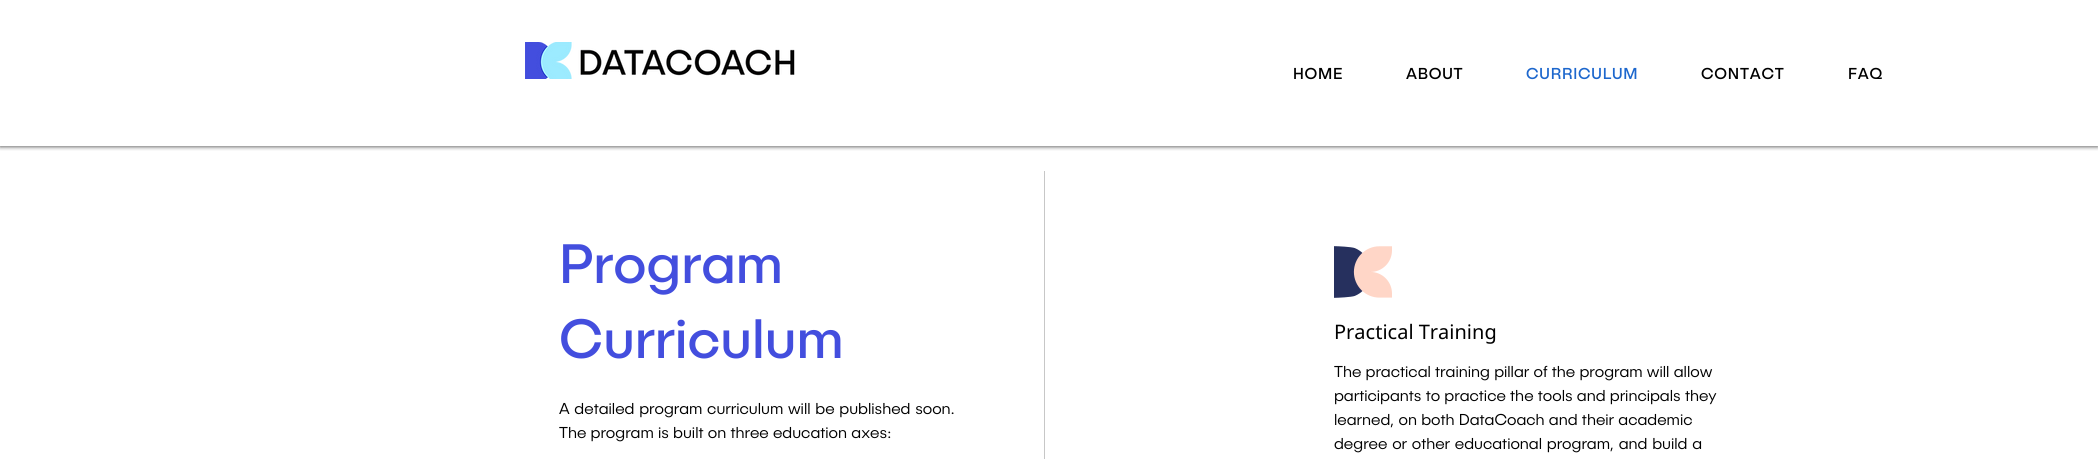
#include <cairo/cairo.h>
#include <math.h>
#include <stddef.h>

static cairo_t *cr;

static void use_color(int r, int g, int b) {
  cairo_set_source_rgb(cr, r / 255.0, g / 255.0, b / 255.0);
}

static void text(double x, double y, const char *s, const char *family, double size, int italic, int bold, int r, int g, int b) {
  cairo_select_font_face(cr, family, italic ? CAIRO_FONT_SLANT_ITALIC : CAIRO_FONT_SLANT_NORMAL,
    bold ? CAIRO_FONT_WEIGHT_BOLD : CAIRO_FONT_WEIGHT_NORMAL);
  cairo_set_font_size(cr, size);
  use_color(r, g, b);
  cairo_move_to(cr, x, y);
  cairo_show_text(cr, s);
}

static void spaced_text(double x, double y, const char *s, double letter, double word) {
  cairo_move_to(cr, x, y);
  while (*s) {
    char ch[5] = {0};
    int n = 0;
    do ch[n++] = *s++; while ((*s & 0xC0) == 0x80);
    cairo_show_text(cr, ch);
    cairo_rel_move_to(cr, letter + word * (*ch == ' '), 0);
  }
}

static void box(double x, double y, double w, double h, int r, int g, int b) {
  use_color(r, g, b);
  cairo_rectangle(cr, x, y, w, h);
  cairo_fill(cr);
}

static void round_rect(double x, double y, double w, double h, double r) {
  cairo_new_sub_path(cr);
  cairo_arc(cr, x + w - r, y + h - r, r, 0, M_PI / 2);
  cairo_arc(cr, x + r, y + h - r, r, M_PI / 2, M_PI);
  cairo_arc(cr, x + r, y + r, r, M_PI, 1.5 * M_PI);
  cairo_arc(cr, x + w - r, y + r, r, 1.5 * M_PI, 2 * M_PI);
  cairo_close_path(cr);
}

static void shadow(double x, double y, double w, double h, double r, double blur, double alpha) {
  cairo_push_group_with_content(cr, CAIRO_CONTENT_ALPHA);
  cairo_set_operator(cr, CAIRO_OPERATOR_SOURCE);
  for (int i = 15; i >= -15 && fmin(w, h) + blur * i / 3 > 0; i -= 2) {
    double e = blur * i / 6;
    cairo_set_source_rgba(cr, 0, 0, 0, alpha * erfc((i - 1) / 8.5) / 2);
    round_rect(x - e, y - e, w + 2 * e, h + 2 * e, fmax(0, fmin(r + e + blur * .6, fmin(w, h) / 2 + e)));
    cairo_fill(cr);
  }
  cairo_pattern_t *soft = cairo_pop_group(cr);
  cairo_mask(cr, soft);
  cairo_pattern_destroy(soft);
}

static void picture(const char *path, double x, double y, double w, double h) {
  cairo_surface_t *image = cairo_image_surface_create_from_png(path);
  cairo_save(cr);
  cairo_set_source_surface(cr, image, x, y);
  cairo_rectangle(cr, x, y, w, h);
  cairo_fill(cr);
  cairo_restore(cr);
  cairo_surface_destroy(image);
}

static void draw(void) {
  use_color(255, 255, 255);
  cairo_paint(cr);
  cairo_save(cr);
  cairo_rectangle(cr, 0, 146, 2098, 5);
  cairo_clip(cr);
  use_color(0, 0, 0);
  shadow(0, 1, 2098, 146, 0, 2, 0.6);
  cairo_restore(cr);
  picture("img_01.png", 525, 42, 270, 37);
  box(1044, 171, 1, 288, 199, 199, 199);
  picture("img_02.png", 1334, 246, 58, 52);
  cairo_select_font_face(cr, "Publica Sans", CAIRO_FONT_SLANT_NORMAL, CAIRO_FONT_WEIGHT_NORMAL);
  cairo_set_font_size(cr, 16);
  use_color(0, 0, 0);
  spaced_text(1293, 79, "HOME", 0.75, 0);
  spaced_text(1406, 79, "ABOUT", 0.75, 0);
  use_color(29, 103, 205);
  spaced_text(1526, 79, "CURRICULUM", 0.75, 0);
  use_color(0, 0, 0);
  spaced_text(1701, 79, "CONTACT", 0.75, 0);
  spaced_text(1848, 79, "FAQ", 0.75, 0);
  text(559, 283, "Program", "Publica Sans", 56, 0, 0, 67, 78, 222);
  text(559, 358, "Curriculum", "Publica Sans", 56, 0, 0, 67, 78, 222);
  cairo_select_font_face(cr, "Publica Sans Light", CAIRO_FONT_SLANT_NORMAL, CAIRO_FONT_WEIGHT_NORMAL);
  cairo_set_font_size(cr, 16);
  use_color(0, 0, 0);
  spaced_text(559, 414, "A detailed program curriculum will be published soon.", 0, 0.5);
  text(559, 438, "The program is built on three education axes:", "Publica Sans Light", 16, 0, 0, 0, 0, 0);
  text(1334, 339, "Practical Training", "Noto Sans Hebrew", 20, 0, 0, 0, 0, 0);
  text(1334, 377, "The practical training pillar of the program will allow", "Publica Sans Light", 16, 0, 0, 0, 0, 0);
  text(1334, 401, "participants to practice the tools and principals they", "Publica Sans Light", 16, 0, 0, 0, 0, 0);
  text(1334, 425, "learned, on both DataCoach and their academic", "Publica Sans Light", 16, 0, 0, 0, 0, 0);
  spaced_text(1334, 449, "degree or other educational program, and build a", 0, 0.5);
}

int main(void) {
  cairo_surface_t *surface = cairo_image_surface_create(CAIRO_FORMAT_RGB24, 2098, 459);
  cr = cairo_create(surface);
  cairo_font_options_t *options = cairo_font_options_create();
  cairo_font_options_set_hint_metrics(options, CAIRO_HINT_METRICS_OFF);
  cairo_font_options_set_hint_style(options, CAIRO_HINT_STYLE_NONE);
  cairo_set_font_options(cr, options);
  cairo_set_miter_limit(cr, 4);
  draw();
  cairo_surface_write_to_png(surface, "out.png");
  cairo_font_options_destroy(options);
  cairo_destroy(cr);
  cairo_surface_destroy(surface);
  return 0;
}
